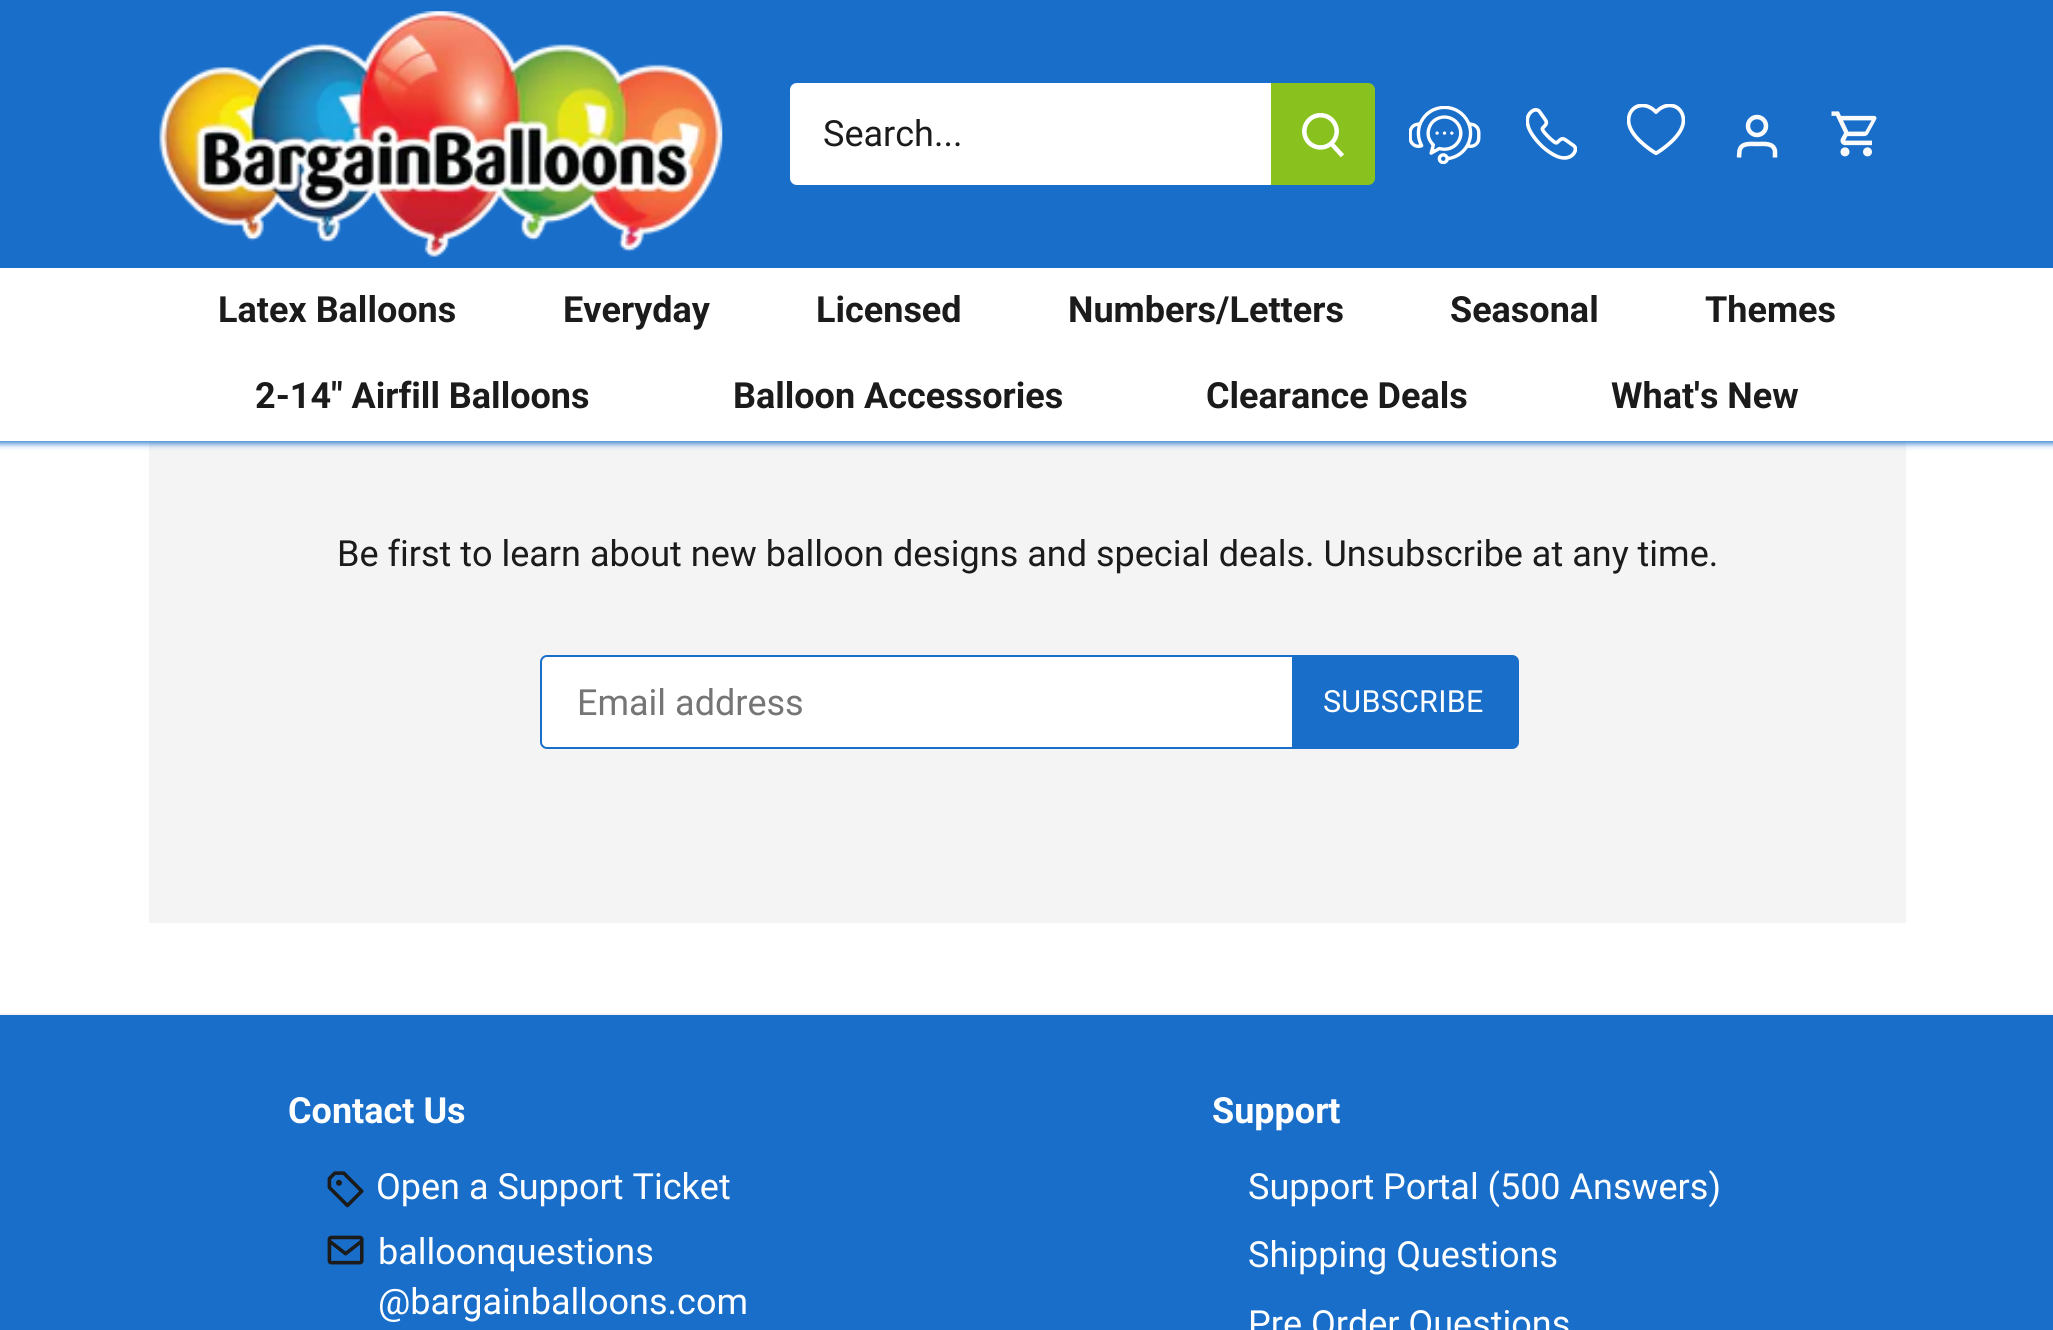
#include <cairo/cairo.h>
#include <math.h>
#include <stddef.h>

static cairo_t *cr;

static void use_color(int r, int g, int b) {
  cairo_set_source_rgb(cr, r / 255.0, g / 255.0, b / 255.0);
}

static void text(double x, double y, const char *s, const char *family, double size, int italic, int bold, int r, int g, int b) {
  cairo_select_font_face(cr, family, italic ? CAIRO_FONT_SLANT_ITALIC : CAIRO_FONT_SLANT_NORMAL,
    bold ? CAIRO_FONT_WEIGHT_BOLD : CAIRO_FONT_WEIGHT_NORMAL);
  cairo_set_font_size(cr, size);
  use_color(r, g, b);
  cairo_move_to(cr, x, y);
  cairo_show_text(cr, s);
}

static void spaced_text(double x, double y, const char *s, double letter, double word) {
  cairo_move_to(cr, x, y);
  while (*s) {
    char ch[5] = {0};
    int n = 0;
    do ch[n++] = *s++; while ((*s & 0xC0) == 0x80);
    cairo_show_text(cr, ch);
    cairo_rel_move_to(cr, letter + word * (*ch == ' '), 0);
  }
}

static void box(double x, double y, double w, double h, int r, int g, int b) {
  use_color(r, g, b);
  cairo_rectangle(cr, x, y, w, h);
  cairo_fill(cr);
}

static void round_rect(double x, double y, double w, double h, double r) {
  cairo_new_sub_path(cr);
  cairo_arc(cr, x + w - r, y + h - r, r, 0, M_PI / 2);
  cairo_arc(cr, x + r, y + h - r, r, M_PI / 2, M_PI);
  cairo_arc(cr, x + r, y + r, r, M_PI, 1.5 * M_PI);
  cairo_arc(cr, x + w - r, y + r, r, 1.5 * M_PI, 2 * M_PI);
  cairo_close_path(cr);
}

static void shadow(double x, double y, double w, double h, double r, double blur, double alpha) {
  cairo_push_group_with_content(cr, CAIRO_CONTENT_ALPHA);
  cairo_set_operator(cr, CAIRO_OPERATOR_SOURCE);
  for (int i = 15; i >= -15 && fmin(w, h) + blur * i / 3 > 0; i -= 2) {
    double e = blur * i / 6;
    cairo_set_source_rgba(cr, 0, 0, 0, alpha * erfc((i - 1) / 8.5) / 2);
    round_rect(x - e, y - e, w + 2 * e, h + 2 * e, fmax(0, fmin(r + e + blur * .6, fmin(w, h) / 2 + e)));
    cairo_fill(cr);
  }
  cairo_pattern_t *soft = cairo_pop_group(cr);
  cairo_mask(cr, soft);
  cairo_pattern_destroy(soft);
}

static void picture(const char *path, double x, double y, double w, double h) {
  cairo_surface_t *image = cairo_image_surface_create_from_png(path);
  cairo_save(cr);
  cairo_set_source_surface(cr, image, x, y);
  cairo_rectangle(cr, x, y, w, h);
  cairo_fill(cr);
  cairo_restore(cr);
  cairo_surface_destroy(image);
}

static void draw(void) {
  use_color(25, 110, 202);
  cairo_paint(cr);
  box(0, 441, 2053, 572, 255, 255, 255);
  box(149, 441, 1757, 482, 244, 244, 244);
  use_color(25, 110, 202);
  shadow(-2, -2, 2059, 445, 0, 3.5, 1);
  box(0, 268, 2053, 173, 255, 255, 255);
  picture("img_01.png", 159, 11, 564, 246);
  cairo_new_path(cr);
  cairo_move_to(cr, 797, 83);
  cairo_line_to(cr, 1274, 83);
  cairo_line_to(cr, 1274, 185);
  cairo_line_to(cr, 797, 185);
  cairo_curve_to(cr, 793, 185, 790, 182, 790, 178);
  cairo_line_to(cr, 790, 90);
  cairo_curve_to(cr, 790, 86, 793, 83, 797, 83);
  cairo_close_path(cr);
  cairo_fill(cr);
  use_color(137, 194, 30);
  cairo_new_path(cr);
  cairo_move_to(cr, 1271, 83);
  cairo_line_to(cr, 1368, 83);
  cairo_curve_to(cr, 1372, 83, 1375, 86, 1375, 90);
  cairo_line_to(cr, 1375, 178);
  cairo_curve_to(cr, 1375, 182, 1372, 185, 1368, 185);
  cairo_line_to(cr, 1271, 185);
  cairo_close_path(cr);
  cairo_fill(cr);
  picture("img_02.png", 1302, 113, 42, 45);
  picture("img_03.png", 1409, 106, 72, 58);
  picture("img_04.png", 1526, 108, 51, 52);
  picture("img_05.png", 1627, 104, 58, 51);
  cairo_arc(cr, 1757, 126, 9, 0, 2 * M_PI);
  use_color(250, 250, 250);
  cairo_set_line_width(cr, 4.5);
  cairo_stroke(cr);
  cairo_new_path(cr);
  cairo_move_to(cr, 1775, 157.5);
  cairo_line_to(cr, 1775, 151);
  cairo_curve_to(cr, 1773.5, 142.5, 1764, 144, 1757, 144);
  cairo_curve_to(cr, 1750.5, 144, 1741, 142.5, 1739.5, 151);
  cairo_line_to(cr, 1739, 157.5);
  cairo_stroke(cr);
  picture("img_06.png", 1831, 111, 46, 46);
  use_color(255, 255, 255);
  round_rect(541, 656, 975, 92, 6);
  cairo_fill_preserve(cr);
  use_color(25, 110, 202);
  cairo_set_line_width(cr, 2);
  cairo_stroke(cr);
  cairo_new_path(cr);
  cairo_move_to(cr, 1293, 656);
  cairo_line_to(cr, 1512, 656);
  cairo_curve_to(cr, 1515.5, 656, 1518, 658.5, 1518, 662);
  cairo_line_to(cr, 1518, 742);
  cairo_curve_to(cr, 1518, 745.5, 1515.5, 748, 1512, 748);
  cairo_line_to(cr, 1293, 748);
  cairo_close_path(cr);
  cairo_fill_preserve(cr);
  cairo_stroke(cr);
  box(0, 1013, 2053, 2, 244, 244, 244);
  picture("img_07.png", 327, 1171, 37, 37);
  picture("img_08.png", 327, 1235, 37, 30);
  text(823, 146, "Search...", "Roboto", 36, 0, 0, 27, 27, 27);
  text(218, 322, "Latex Balloons", "Roboto", 36, 0, 1, 27, 27, 27);
  text(563, 322, "Everyday", "Roboto", 36, 0, 1, 27, 27, 27);
  text(816, 322, "Licensed", "Roboto", 36, 0, 1, 27, 27, 27);
  text(1068, 322, "Numbers/Letters", "Roboto", 36, 0, 1, 27, 27, 27);
  text(1450, 322, "Seasonal", "Roboto", 36, 0, 1, 27, 27, 27);
  text(1705, 322, "Themes", "Roboto", 36, 0, 1, 27, 27, 27);
  text(255, 408, "2-14\" Airfill Balloons", "Roboto", 36, 0, 1, 27, 27, 27);
  text(733, 408, "Balloon Accessories", "Roboto", 36, 0, 1, 27, 27, 27);
  text(1206, 408, "Clearance Deals", "Roboto", 36, 0, 1, 27, 27, 27);
  text(1611, 408, "What's New", "Roboto", 36, 0, 1, 27, 27, 27);
  text(337, 566, "Be first to learn about new balloon designs and special deals. Unsubscribe at any time.", "Roboto", 36, 0, 0, 27, 27, 27);
  text(577, 715, "Email address", "Roboto", 36, 0, 0, 117, 117, 117);
  cairo_set_font_size(cr, 30.5);
  use_color(255, 255, 255);
  spaced_text(1323, 712, "SUBSCRIBE", 0.25, 0);
  text(288, 1123, "Contact Us", "Roboto", 36, 0, 1, 255, 255, 255);
  text(376, 1199, "Open a Support Ticket", "Roboto", 36, 0, 0, 255, 255, 255);
  text(378, 1264, "balloonquestions", "Roboto", 36, 0, 0, 255, 255, 255);
  text(378, 1314, "@bargainballoons.com", "Roboto", 36, 0, 0, 255, 255, 255);
  text(1212, 1123, "Support", "Roboto", 36, 0, 1, 255, 255, 255);
  text(1248, 1199, "Support Portal (500 Answers)", "Roboto", 36, 0, 0, 255, 255, 255);
  text(1248, 1267, "Shipping Questions", "Roboto", 36, 0, 0, 255, 255, 255);
  text(1248, 1336, "Pre Order Questions", "Roboto", 36, 0, 0, 255, 255, 255);
}

int main(void) {
  cairo_surface_t *surface = cairo_image_surface_create(CAIRO_FORMAT_RGB24, 2053, 1330);
  cr = cairo_create(surface);
  cairo_font_options_t *options = cairo_font_options_create();
  cairo_font_options_set_hint_metrics(options, CAIRO_HINT_METRICS_OFF);
  cairo_font_options_set_hint_style(options, CAIRO_HINT_STYLE_NONE);
  cairo_set_font_options(cr, options);
  cairo_set_miter_limit(cr, 4);
  draw();
  cairo_surface_write_to_png(surface, "out.png");
  cairo_font_options_destroy(options);
  cairo_destroy(cr);
  cairo_surface_destroy(surface);
  return 0;
}
